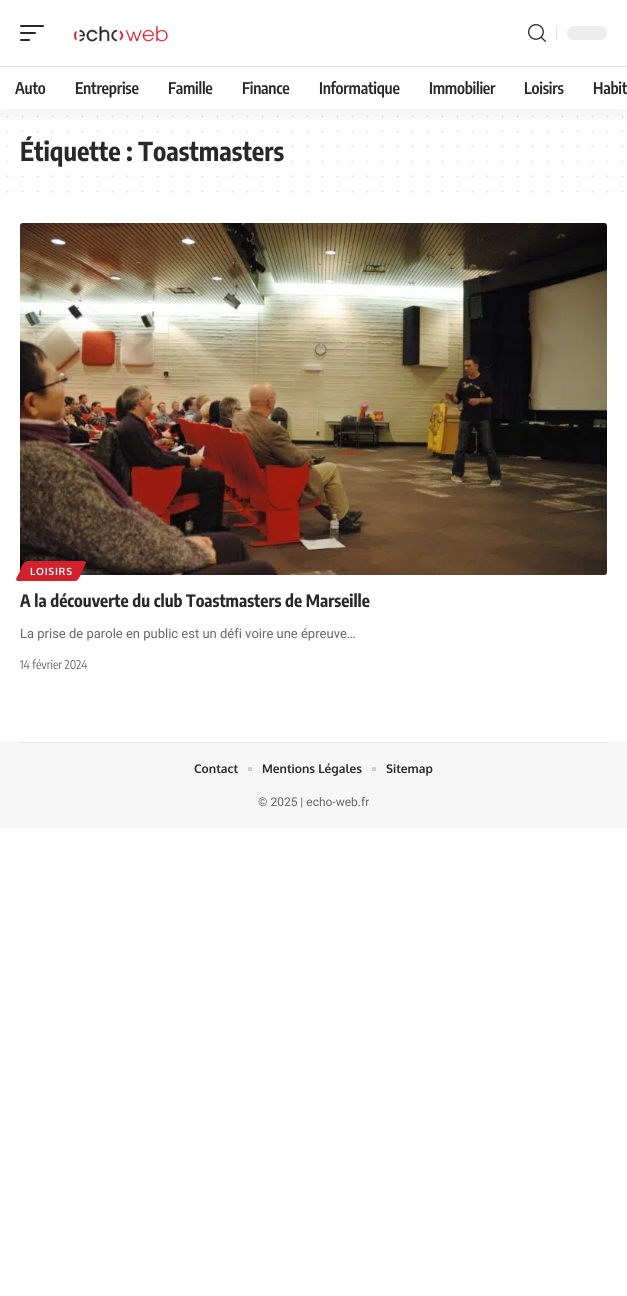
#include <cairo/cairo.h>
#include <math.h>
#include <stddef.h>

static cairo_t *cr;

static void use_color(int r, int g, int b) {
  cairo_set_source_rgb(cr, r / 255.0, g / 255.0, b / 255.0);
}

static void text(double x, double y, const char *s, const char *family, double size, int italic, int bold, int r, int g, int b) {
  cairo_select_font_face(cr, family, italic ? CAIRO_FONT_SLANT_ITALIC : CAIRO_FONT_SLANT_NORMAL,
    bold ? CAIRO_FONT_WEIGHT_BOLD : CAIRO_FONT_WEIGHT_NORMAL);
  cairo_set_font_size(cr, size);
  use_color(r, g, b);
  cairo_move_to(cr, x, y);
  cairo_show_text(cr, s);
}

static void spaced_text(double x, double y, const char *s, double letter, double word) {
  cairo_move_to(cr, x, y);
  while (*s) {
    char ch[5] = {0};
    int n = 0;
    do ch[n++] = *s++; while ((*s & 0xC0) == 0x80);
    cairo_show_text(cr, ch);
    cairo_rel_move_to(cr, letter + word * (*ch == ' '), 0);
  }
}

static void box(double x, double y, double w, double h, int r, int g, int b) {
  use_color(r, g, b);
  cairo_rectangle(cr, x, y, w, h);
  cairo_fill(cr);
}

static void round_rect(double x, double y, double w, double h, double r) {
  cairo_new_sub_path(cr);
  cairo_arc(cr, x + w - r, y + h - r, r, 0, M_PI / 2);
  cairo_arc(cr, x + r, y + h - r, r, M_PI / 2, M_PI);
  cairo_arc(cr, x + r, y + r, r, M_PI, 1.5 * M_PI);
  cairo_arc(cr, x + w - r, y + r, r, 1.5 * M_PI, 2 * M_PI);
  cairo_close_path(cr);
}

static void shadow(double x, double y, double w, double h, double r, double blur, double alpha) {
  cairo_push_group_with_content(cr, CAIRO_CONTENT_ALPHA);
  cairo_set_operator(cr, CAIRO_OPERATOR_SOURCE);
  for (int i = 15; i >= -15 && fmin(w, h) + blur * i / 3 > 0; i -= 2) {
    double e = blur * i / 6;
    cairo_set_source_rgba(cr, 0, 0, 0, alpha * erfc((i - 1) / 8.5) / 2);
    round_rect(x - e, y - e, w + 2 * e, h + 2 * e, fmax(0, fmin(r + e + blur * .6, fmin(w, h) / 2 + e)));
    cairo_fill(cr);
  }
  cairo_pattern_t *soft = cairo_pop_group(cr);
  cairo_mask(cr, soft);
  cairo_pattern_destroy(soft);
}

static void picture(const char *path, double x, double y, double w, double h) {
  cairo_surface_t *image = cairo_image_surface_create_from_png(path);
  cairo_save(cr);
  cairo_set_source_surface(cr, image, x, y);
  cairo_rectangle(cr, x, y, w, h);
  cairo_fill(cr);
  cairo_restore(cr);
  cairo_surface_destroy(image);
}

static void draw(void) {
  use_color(255, 255, 255);
  cairo_paint(cr);
  cairo_new_path(cr);
  cairo_move_to(cr, 7.5, 116.5);
  cairo_line_to(cr, 622.7, 116.5);
  use_color(223, 223, 223);
  cairo_set_line_cap(cr, CAIRO_LINE_CAP_ROUND);
  cairo_set_dash(cr, (double[]){0, 15}, 2, 0);
  cairo_stroke(cr);
  cairo_new_path(cr);
  cairo_move_to(cr, 7.5, 131.5);
  cairo_line_to(cr, 622.7, 131.5);
  cairo_stroke(cr);
  cairo_new_path(cr);
  cairo_move_to(cr, 7.5, 176.5);
  cairo_line_to(cr, 622.7, 176.5);
  cairo_stroke(cr);
  cairo_new_path(cr);
  cairo_move_to(cr, 7.5, 191.5);
  cairo_line_to(cr, 622.7, 191.5);
  cairo_stroke(cr);
  picture("img_03.png", 20, 223, 587, 352);
  use_color(209, 34, 46);
  cairo_new_path(cr);
  cairo_move_to(cr, 28, 561);
  cairo_line_to(cr, 84, 561);
  cairo_curve_to(cr, 85, 561, 86, 562, 86, 563);
  cairo_line_to(cr, 82, 571);
  cairo_curve_to(cr, 81, 574, 79, 581, 75, 581);
  cairo_line_to(cr, 17, 581);
  cairo_line_to(cr, 16, 579);
  cairo_line_to(cr, 20, 571);
  cairo_curve_to(cr, 21, 568, 23, 561, 28, 561);
  cairo_close_path(cr);
  cairo_fill(cr);
  box(0, 742, 627, 86, 247, 247, 247);
  box(20, 742, 587, 1, 230, 230, 230);
  box(248, 767, 4, 4, 206, 206, 206);
  box(372, 767, 4, 4, 206, 206, 206);
  text(20, 161, "Étiquette : Toastmasters", "Encode Sans Condensed", 26, 0, 1, 40, 40, 40);
  cairo_new_path(cr);
  cairo_move_to(cr, 7.5, 146.5);
  cairo_line_to(cr, 622.7, 146.5);
  cairo_set_source_rgba(cr, 0.157, 0.157, 0.157, 0.15);
  cairo_stroke(cr);
  cairo_save(cr);
  cairo_rectangle(cr, 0, 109, 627, 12);
  cairo_clip(cr);
  use_color(0, 0, 0);
  shadow(0, 4, 627, 109, 0, 15, 0.07);
  cairo_restore(cr);
  cairo_select_font_face(cr, "Encode Sans Condensed SemiBold", CAIRO_FONT_SLANT_NORMAL, CAIRO_FONT_WEIGHT_NORMAL);
  cairo_set_font_size(cr, 16);
  use_color(40, 40, 40);
  spaced_text(593, 94, "Habit", -0.25, 0);
  spaced_text(524, 94, "Loisirs", -0.25, 0);
  spaced_text(429, 94, "Immobilier", -0.25, 0);
  spaced_text(319, 94, "Informatique", -0.25, 0);
  spaced_text(242, 94, "Finance", -0.25, 0);
  spaced_text(168, 94, "Famille", -0.25, 0);
  spaced_text(75, 94, "Entreprise", -0.25, 0);
  spaced_text(15, 94, "Auto", -0.25, 0);
  box(0, 66, 627, 1, 228, 228, 228);
  use_color(237, 237, 237);
  round_rect(567, 26, 40, 14, 7);
  cairo_fill(cr);
  box(556, 26, 1, 14, 228, 228, 228);
  picture("img_02.png", 528, 24, 18, 18);
  use_color(40, 40, 40);
  round_rect(20, 39, 10, 2, 1);
  cairo_fill(cr);
  round_rect(20, 32, 16, 2, 1);
  cairo_fill(cr);
  round_rect(20, 25, 24, 2, 1);
  cairo_fill(cr);
  picture("img_01.png", 74, 26, 94, 16);
  cairo_new_path(cr);
  cairo_move_to(cr, 7.5, 161.5);
  cairo_line_to(cr, 622.7, 161.5);
  cairo_set_source_rgba(cr, 0.157, 0.157, 0.157, 0.15);
  cairo_stroke(cr);
  cairo_select_font_face(cr, "Oxygen", CAIRO_FONT_SLANT_NORMAL, CAIRO_FONT_WEIGHT_BOLD);
  cairo_set_font_size(cr, 10);
  use_color(255, 255, 255);
  spaced_text(30, 575, "LOISIRS", 0.75, 0);
  text(20, 607, "A la découverte du club Toastmasters de Marseille", "Encode Sans Condensed", 17, 0, 1, 40, 40, 40);
  text(20, 638, "La prise de parole en public est un défi voire une épreuve…", "Roboto", 13, 0, 0, 102, 102, 102);
  text(20, 669, "14 février 2024", "Encode Sans Condensed", 12, 0, 0, 102, 102, 102);
  text(194, 773, "Contact", "Oxygen", 12, 0, 1, 40, 40, 40);
  text(262, 773, "Mentions Légales", "Oxygen", 12, 0, 1, 40, 40, 40);
  text(386, 773, "Sitemap", "Oxygen", 12, 0, 1, 40, 40, 40);
  text(258, 806, "© 2025 | echo-web.fr", "Roboto", 12, 0, 0, 102, 102, 102);
}

int main(void) {
  cairo_surface_t *surface = cairo_image_surface_create(CAIRO_FORMAT_RGB24, 627, 1296);
  cr = cairo_create(surface);
  cairo_font_options_t *options = cairo_font_options_create();
  cairo_font_options_set_hint_metrics(options, CAIRO_HINT_METRICS_OFF);
  cairo_font_options_set_hint_style(options, CAIRO_HINT_STYLE_NONE);
  cairo_set_font_options(cr, options);
  cairo_set_miter_limit(cr, 4);
  draw();
  cairo_surface_write_to_png(surface, "out.png");
  cairo_font_options_destroy(options);
  cairo_destroy(cr);
  cairo_surface_destroy(surface);
  return 0;
}
